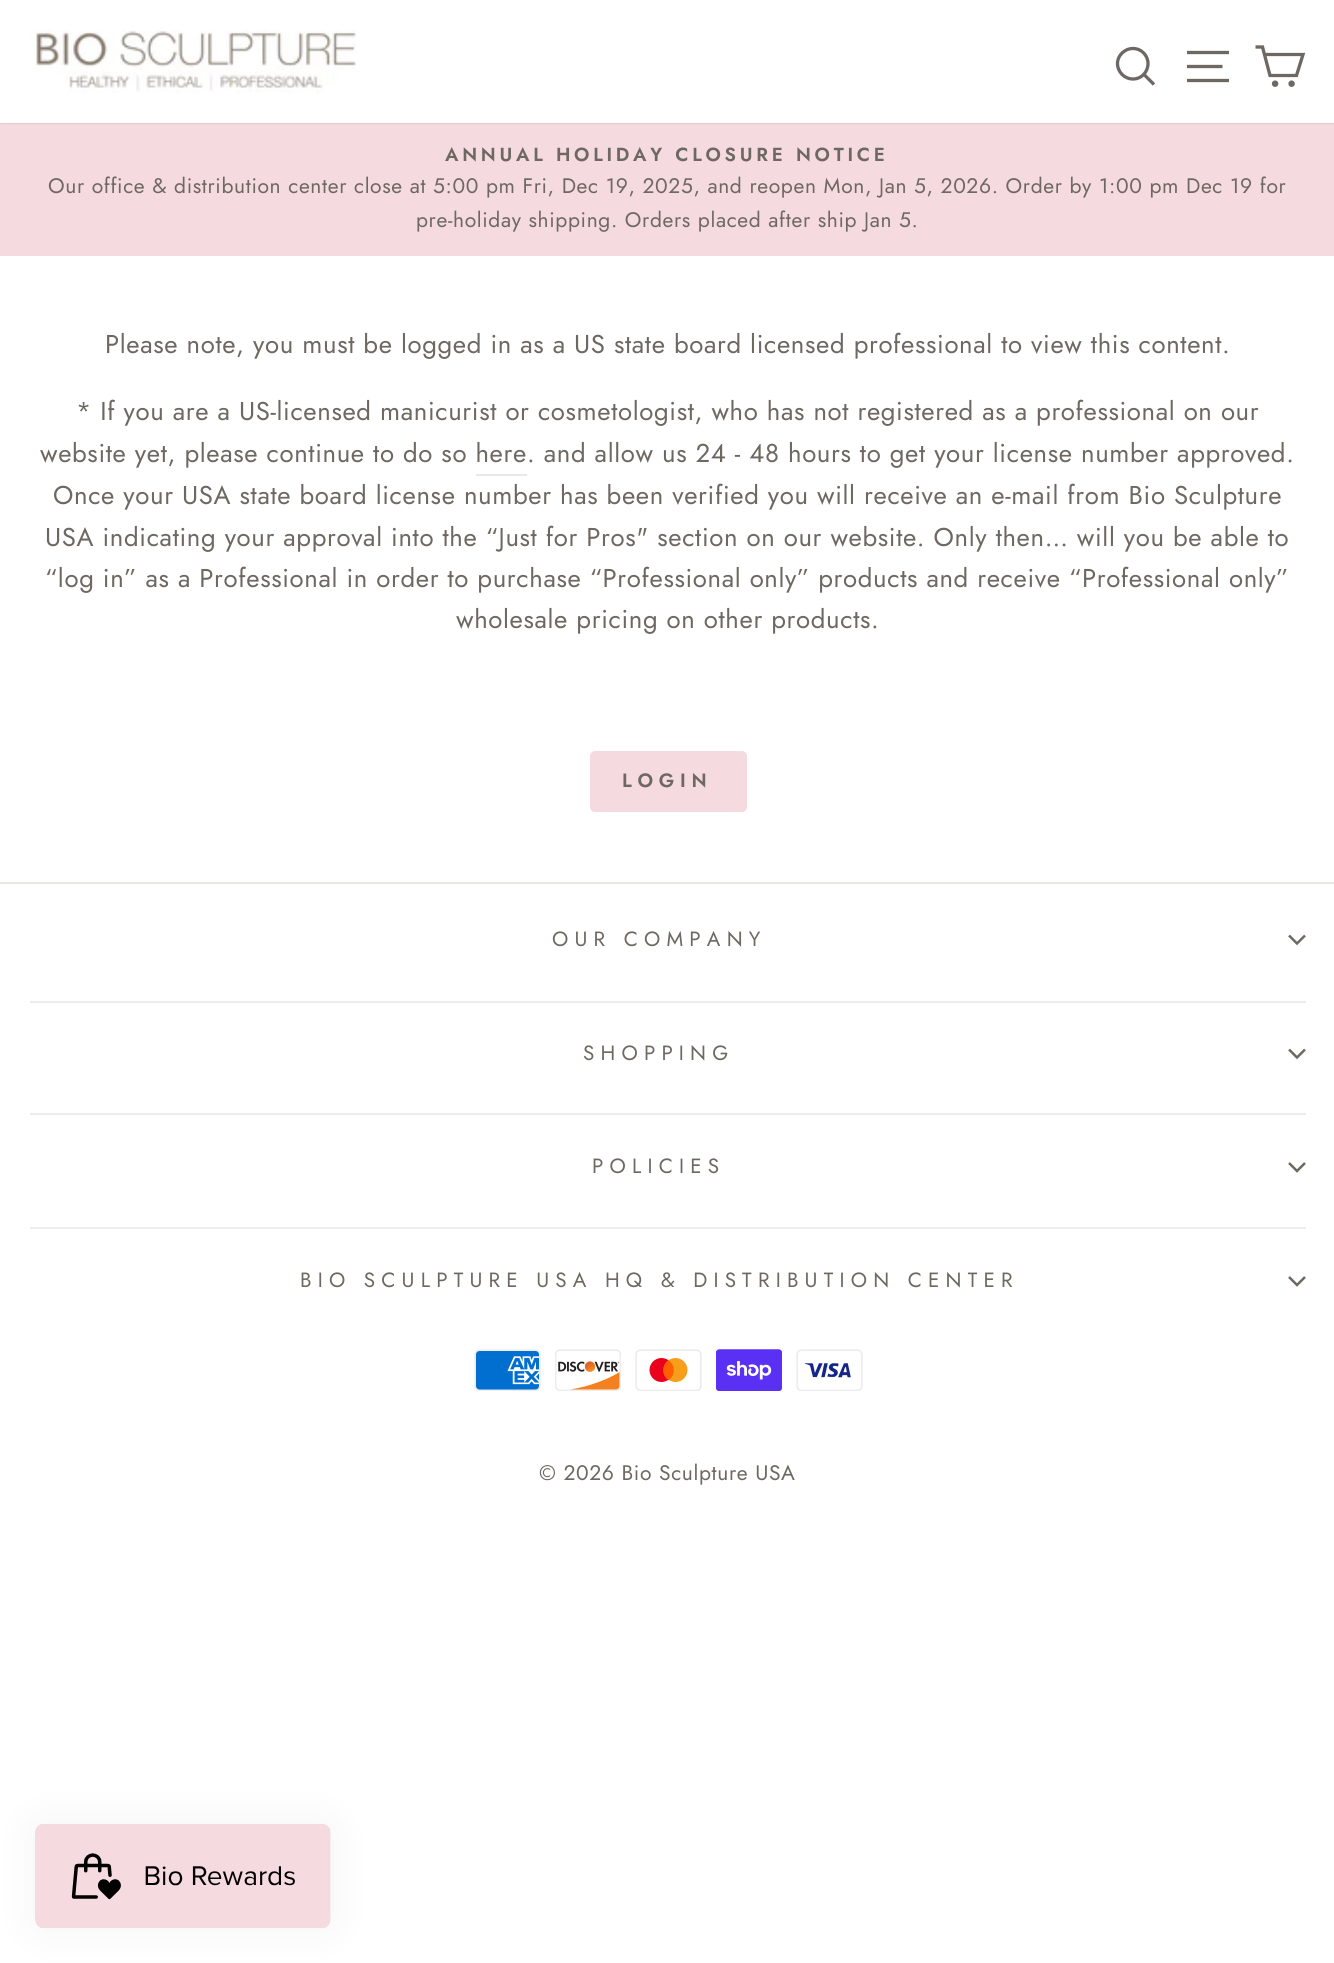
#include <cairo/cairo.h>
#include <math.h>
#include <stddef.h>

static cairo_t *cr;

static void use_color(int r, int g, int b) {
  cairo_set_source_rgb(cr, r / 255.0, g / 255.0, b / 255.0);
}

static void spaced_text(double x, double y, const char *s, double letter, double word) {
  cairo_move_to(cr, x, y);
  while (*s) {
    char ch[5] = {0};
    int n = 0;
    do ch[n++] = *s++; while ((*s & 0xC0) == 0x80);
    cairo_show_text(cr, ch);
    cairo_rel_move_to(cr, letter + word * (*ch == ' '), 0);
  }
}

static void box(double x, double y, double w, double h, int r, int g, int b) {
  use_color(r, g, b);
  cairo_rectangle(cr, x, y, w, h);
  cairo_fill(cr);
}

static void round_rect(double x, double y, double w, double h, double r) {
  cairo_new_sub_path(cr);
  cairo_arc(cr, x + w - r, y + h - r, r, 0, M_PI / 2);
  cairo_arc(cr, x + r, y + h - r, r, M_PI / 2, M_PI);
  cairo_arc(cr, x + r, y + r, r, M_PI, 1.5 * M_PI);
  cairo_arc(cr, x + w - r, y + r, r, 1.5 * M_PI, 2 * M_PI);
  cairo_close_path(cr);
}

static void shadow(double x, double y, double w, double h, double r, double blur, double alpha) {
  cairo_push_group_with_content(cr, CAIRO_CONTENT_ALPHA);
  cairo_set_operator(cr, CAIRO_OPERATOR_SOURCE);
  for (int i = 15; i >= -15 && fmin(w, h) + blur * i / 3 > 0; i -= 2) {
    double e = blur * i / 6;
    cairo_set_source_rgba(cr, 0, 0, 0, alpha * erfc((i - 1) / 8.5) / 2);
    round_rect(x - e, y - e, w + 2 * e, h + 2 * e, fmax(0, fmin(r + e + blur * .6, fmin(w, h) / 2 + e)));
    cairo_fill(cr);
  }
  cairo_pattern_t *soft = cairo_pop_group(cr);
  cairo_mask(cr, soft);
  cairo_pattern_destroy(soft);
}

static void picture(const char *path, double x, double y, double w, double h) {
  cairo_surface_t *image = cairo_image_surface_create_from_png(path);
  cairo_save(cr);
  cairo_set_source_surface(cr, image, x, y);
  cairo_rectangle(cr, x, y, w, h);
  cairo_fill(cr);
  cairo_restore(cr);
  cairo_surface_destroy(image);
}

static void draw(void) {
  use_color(255, 255, 255);
  cairo_paint(cr);
  box(0, 123, 1334, 133, 245, 218, 223);
  use_color(0, 0, 0);
  shadow(0, 0, 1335, 123, 0, 1, 0.2);
  box(0, 0, 1334, 123, 255, 255, 255);
  picture("img_01.png", 30, 30, 326, 63);
  cairo_new_path(cr);
  cairo_move_to(cr, 1148, 63.5);
  cairo_curve_to(cr, 1148, 72, 1141.5, 79, 1133, 79);
  cairo_curve_to(cr, 1124.5, 79, 1117.5, 72, 1117.5, 63.5);
  cairo_curve_to(cr, 1117.5, 55.5, 1124.5, 48.5, 1133, 48.5);
  cairo_curve_to(cr, 1141.5, 48.5, 1148, 55.5, 1148, 63.5);
  cairo_close_path(cr);
  cairo_move_to(cr, 1154, 84.5);
  cairo_line_to(cr, 1144, 74.5);
  use_color(110, 104, 99);
  cairo_set_line_width(cr, 3.3);
  cairo_stroke(cr);
  cairo_new_path(cr);
  cairo_move_to(cr, 1187, 52.5);
  cairo_line_to(cr, 1229, 52.5);
  cairo_move_to(cr, 1187, 66.5);
  cairo_line_to(cr, 1222.5, 66.5);
  cairo_move_to(cr, 1187, 80.5);
  cairo_line_to(cr, 1229, 80.5);
  cairo_stroke(cr);
  cairo_new_path(cr);
  cairo_move_to(cr, 1264.5, 54.5);
  cairo_line_to(cr, 1303, 54.5);
  cairo_line_to(cr, 1296.5, 75.5);
  cairo_line_to(cr, 1270, 75.5);
  cairo_line_to(cr, 1262.5, 47);
  cairo_line_to(cr, 1255.5, 47);
  cairo_stroke(cr);
  cairo_arc(cr, 1275.1, 83.7, 1.6, 0, 2 * M_PI);
  cairo_stroke(cr);
  cairo_arc(cr, 1291.6, 83.7, 1.6, 0, 2 * M_PI);
  cairo_stroke(cr);
  box(476, 474, 51, 2, 233, 232, 232);
  use_color(245, 218, 223);
  round_rect(590, 751, 157, 61, 5);
  cairo_fill(cr);
  box(0, 882, 1334, 2, 232, 232, 225);
  cairo_new_path(cr);
  cairo_move_to(cr, 1289, 935.5);
  cairo_line_to(cr, 1297, 943.5);
  cairo_line_to(cr, 1305, 935.5);
  use_color(110, 104, 99);
  cairo_set_line_width(cr, 2.5);
  cairo_stroke(cr);
  box(30, 1001, 1276, 2, 238, 237, 236);
  cairo_new_path(cr);
  cairo_move_to(cr, 1289, 1049.5);
  cairo_line_to(cr, 1297, 1057.5);
  cairo_line_to(cr, 1305, 1049.5);
  use_color(110, 104, 99);
  cairo_stroke(cr);
  box(30, 1113, 1276, 2, 238, 237, 236);
  cairo_new_path(cr);
  cairo_move_to(cr, 1289, 1163);
  cairo_line_to(cr, 1297, 1171);
  cairo_line_to(cr, 1305, 1163);
  use_color(110, 104, 99);
  cairo_stroke(cr);
  box(30, 1227, 1276, 2, 238, 237, 236);
  cairo_new_path(cr);
  cairo_move_to(cr, 1289, 1277);
  cairo_line_to(cr, 1297, 1285);
  cairo_line_to(cr, 1305, 1277);
  use_color(110, 104, 99);
  cairo_stroke(cr);
  picture("img_02.png", 474, 1349, 67, 42);
  picture("img_03.png", 555, 1349, 66, 42);
  picture("img_04.png", 635, 1349, 67, 42);
  picture("img_05.png", 716, 1349, 66, 42);
  picture("img_06.png", 796, 1349, 67, 42);
  use_color(0, 0, 0);
  shadow(35, 1824, 296, 105, 9, 22, 0.05);
  picture("img_07.png", 35, 1824, 296, 104);
  cairo_select_font_face(cr, "Jost SemiBold", CAIRO_FONT_SLANT_NORMAL, CAIRO_FONT_WEIGHT_NORMAL);
  cairo_set_font_size(cr, 18.9);
  use_color(110, 104, 99);
  spaced_text(445, 161, "ANNUAL HOLIDAY CLOSURE NOTICE", 3.75, 0);
  cairo_select_font_face(cr, "Jost", CAIRO_FONT_SLANT_NORMAL, CAIRO_FONT_WEIGHT_NORMAL);
  cairo_set_font_size(cr, 21);
  spaced_text(48, 193, "Our office & distribution center close at 5:00 pm Fri, Dec 19, 2025, and reopen Mon, Jan 5, 2026. Order by 1:00 pm Dec 19 for", 0.64, 0);
  spaced_text(416, 227, "pre-holiday shipping. Orders placed after ship Jan 5.", 0.64, 0);
  cairo_set_font_size(cr, 25.75);
  spaced_text(105, 353, "Please note, you must be logged in as a US state board licensed professional to view this content.", 0.64, 0);
  spaced_text(76, 420, "* If you are a US-licensed manicurist or cosmetologist, who has not registered as a professional on our", 0.64, 0);
  spaced_text(40, 462, "website yet, please continue to do so here", 0.64, 0);
  spaced_text(527, 462, ". and allow us 24 - 48 hours to get your license number approved.", 0.64, 0);
  spaced_text(53, 504, "Once your USA state board license number has been verified you will receive an e-mail from Bio Sculpture", 0.64, 0);
  spaced_text(45, 546, "USA indicating your approval into the “Just for Pros\" section on our website. Only then… will you be able to", 0.64, 0);
  spaced_text(45, 587, "“log in” as a Professional in order to purchase “Professional only” products and receive “Professional only”", 0.64, 0);
  spaced_text(456, 628, "wholesale pricing on other products.", 0.64, 0);
  cairo_select_font_face(cr, "Jost SemiBold", CAIRO_FONT_SLANT_NORMAL, CAIRO_FONT_WEIGHT_NORMAL);
  cairo_set_font_size(cr, 19.25);
  spaced_text(622, 787, "LOGIN", 5.75, 0);
  cairo_select_font_face(cr, "Jost", CAIRO_FONT_SLANT_NORMAL, CAIRO_FONT_WEIGHT_NORMAL);
  cairo_set_font_size(cr, 20.6);
  spaced_text(552, 946, "OUR COMPANY", 6.2, 0);
  spaced_text(583, 1060, "SHOPPING", 6.2, 0);
  spaced_text(592, 1173, "POLICIES", 6.2, 0);
  spaced_text(300, 1287, "BIO SCULPTURE USA HQ & DISTRIBUTION CENTER", 6.2, 0);
  cairo_set_font_size(cr, 21);
  spaced_text(539, 1480, "© 2026 Bio Sculpture USA", 0.64, 0);
}

int main(void) {
  cairo_surface_t *surface = cairo_image_surface_create(CAIRO_FORMAT_RGB24, 1334, 1963);
  cr = cairo_create(surface);
  cairo_font_options_t *options = cairo_font_options_create();
  cairo_font_options_set_hint_metrics(options, CAIRO_HINT_METRICS_OFF);
  cairo_font_options_set_hint_style(options, CAIRO_HINT_STYLE_NONE);
  cairo_set_font_options(cr, options);
  cairo_set_miter_limit(cr, 4);
  draw();
  cairo_surface_write_to_png(surface, "out.png");
  cairo_font_options_destroy(options);
  cairo_destroy(cr);
  cairo_surface_destroy(surface);
  return 0;
}
